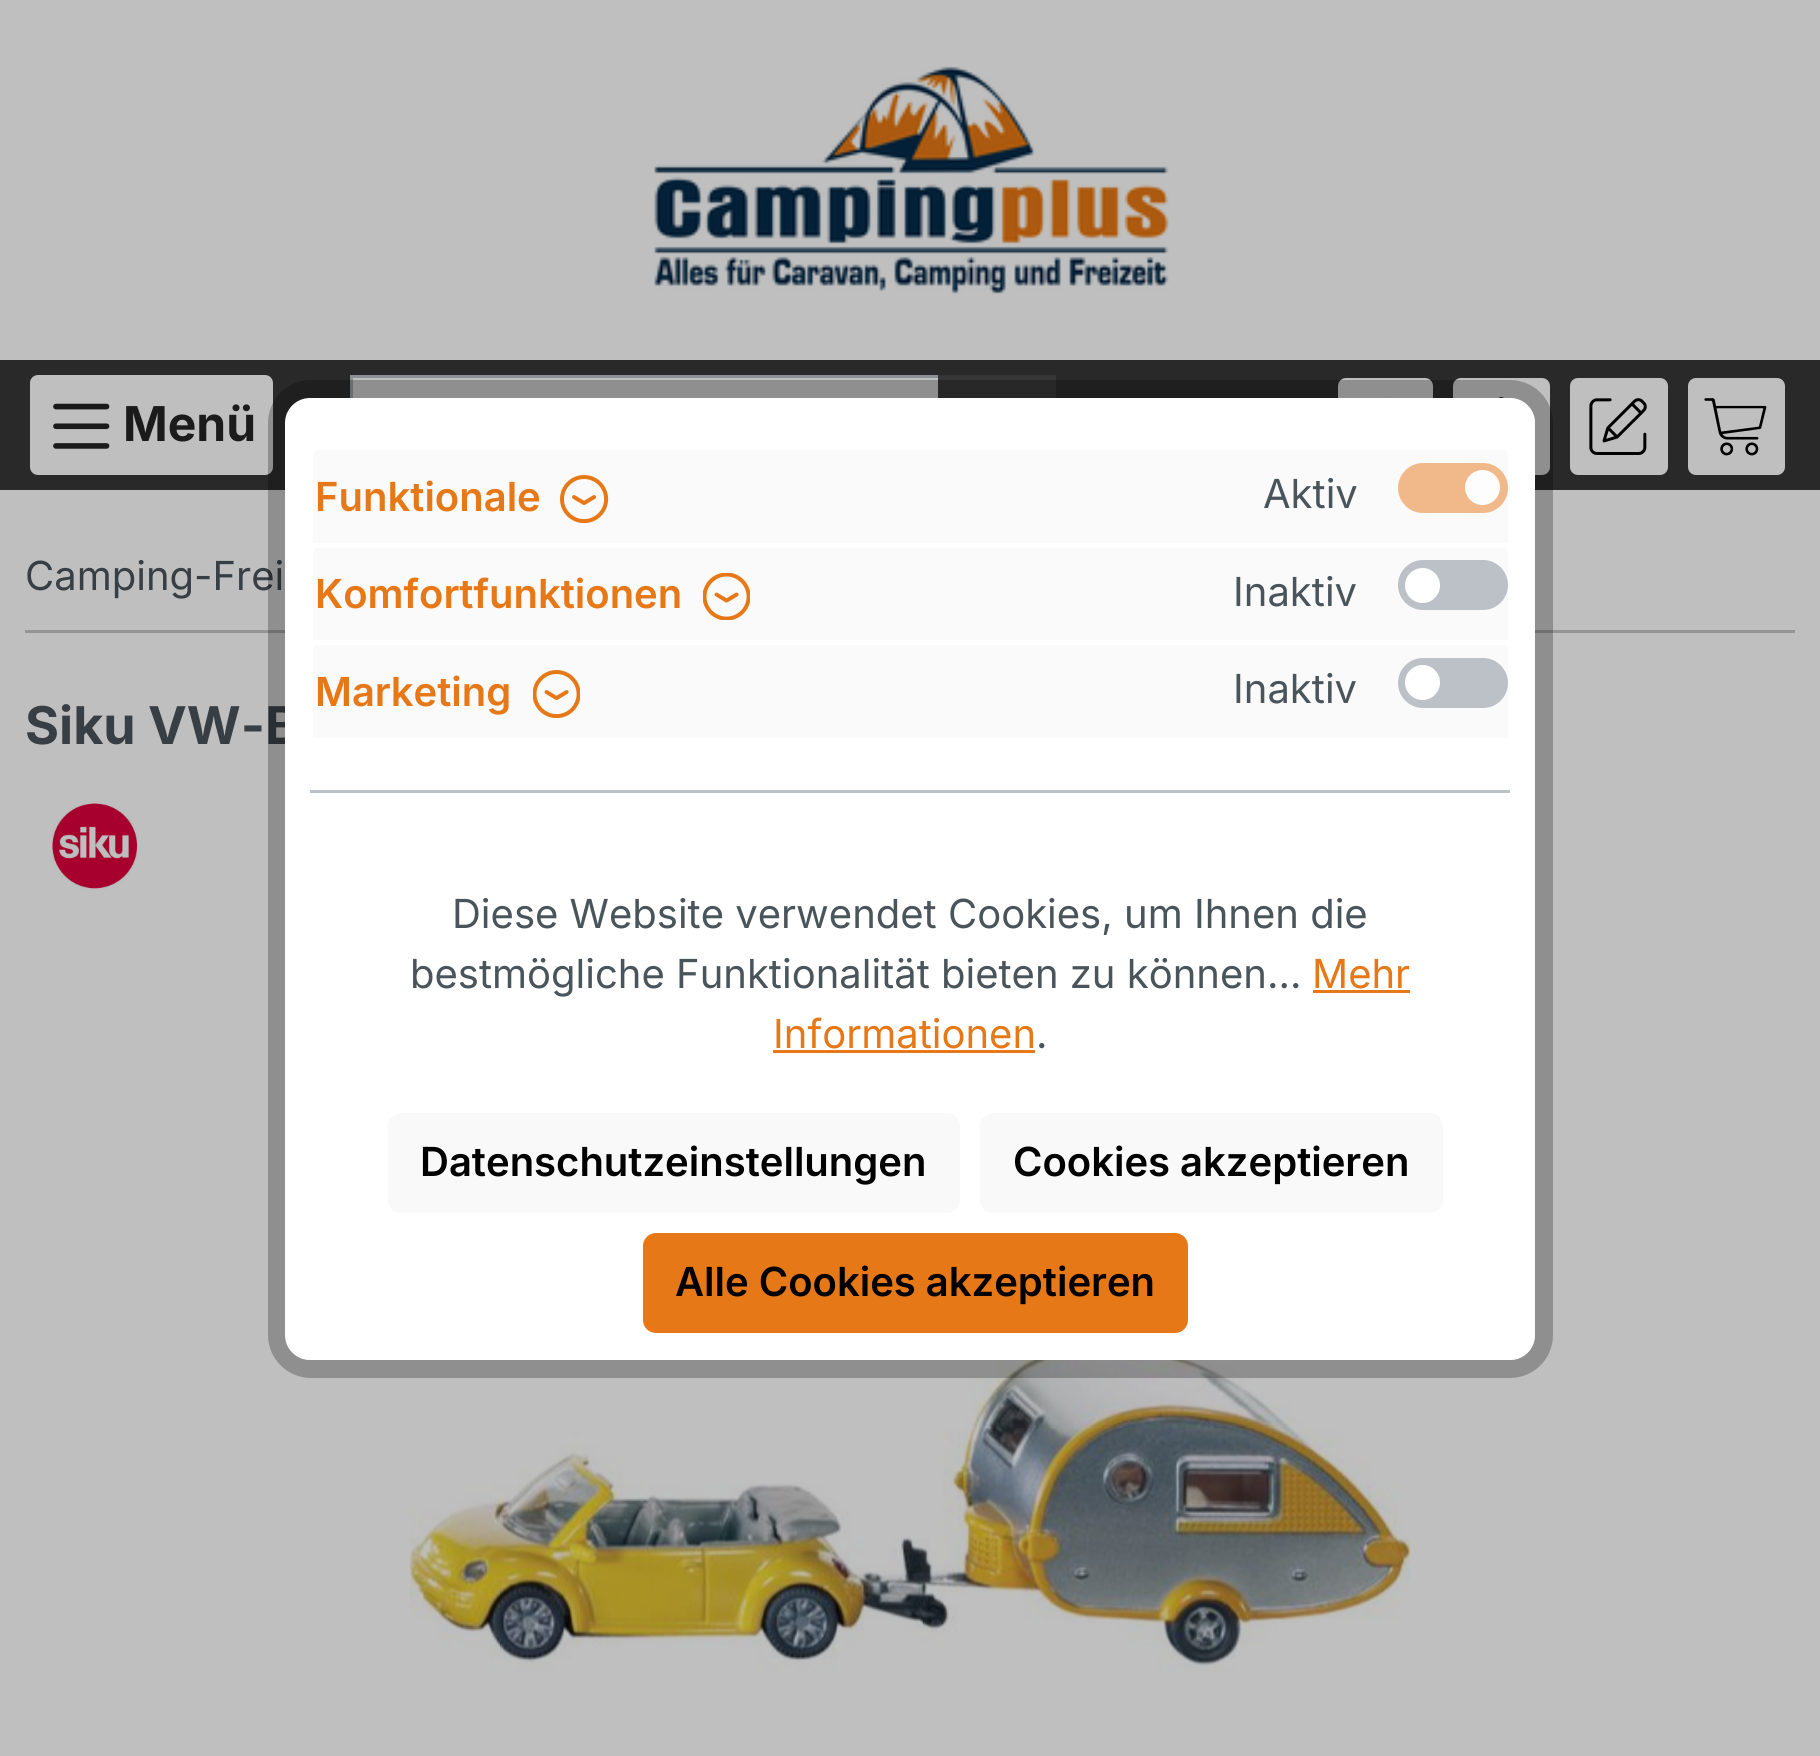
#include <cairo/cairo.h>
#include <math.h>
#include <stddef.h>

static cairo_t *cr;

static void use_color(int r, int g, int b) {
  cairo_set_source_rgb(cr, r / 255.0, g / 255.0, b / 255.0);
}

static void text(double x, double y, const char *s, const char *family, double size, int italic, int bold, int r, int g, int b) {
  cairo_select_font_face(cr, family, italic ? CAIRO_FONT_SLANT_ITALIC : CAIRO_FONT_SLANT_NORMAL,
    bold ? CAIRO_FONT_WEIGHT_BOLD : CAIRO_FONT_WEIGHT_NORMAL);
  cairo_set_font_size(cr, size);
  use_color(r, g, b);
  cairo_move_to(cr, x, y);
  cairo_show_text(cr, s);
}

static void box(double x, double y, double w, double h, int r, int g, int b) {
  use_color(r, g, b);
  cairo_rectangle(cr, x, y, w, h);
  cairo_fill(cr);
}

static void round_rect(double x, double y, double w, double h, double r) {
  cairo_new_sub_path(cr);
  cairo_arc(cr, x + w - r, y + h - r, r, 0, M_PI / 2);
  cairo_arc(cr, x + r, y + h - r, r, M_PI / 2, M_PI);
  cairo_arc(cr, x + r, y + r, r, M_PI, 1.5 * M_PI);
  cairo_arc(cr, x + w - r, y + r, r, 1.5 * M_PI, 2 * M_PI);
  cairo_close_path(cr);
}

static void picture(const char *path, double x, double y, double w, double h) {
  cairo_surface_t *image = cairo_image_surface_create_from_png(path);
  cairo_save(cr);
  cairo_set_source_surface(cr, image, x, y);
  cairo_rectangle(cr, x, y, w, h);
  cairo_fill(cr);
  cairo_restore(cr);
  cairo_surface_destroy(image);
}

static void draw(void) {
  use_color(191, 191, 191);
  cairo_paint(cr);
  picture("img_01.png", 654, 66, 515, 228);
  box(0, 360, 1820, 130, 41, 41, 41);
  box(353, 378, 585, 20, 191, 191, 191);
  box(350, 375, 590, 3, 141, 145, 149);
  box(350, 375, 3, 23, 141, 145, 149);
  box(938, 375, 118, 23, 54, 54, 54);
  use_color(191, 191, 191);
  round_rect(30, 375, 243, 100, 8);
  cairo_fill(cr);
  picture("img_02.png", 53, 403, 57, 46);
  cairo_save(cr);
  round_rect(1335, 378, 100, 105, 10);
  cairo_clip(cr);
  round_rect(1338, 378, 95, 97, 8);
  cairo_fill(cr);
  cairo_restore(cr);
  picture("img_03.png", 1386, 397, 1, 1);
  cairo_save(cr);
  round_rect(1450, 378, 103, 105, 10);
  cairo_clip(cr);
  round_rect(1453, 378, 97, 97, 8);
  cairo_fill(cr);
  cairo_restore(cr);
  picture("img_04.png", 1499, 397, 5, 1);
  round_rect(1570, 378, 98, 97, 8);
  cairo_fill(cr);
  picture("img_05.png", 1589, 398, 58, 57);
  round_rect(1688, 378, 97, 97, 8);
  cairo_fill(cr);
  picture("img_06.png", 1704, 398, 63, 58);
  box(25, 630, 1770, 3, 149, 149, 149);
  picture("img_07.png", 52, 802, 86, 88);
  picture("img_08.png", 409, 1360, 1002, 312);
  text(123, 441, "Menü", "Inter", 48, 0, 1, 27, 27, 27);
  text(25, 590, "Camping-Frei", "Inter", 40, 0, 0, 56, 63, 68);
  text(25, 744, "Siku VW-B", "Inter", 52, 0, 1, 56, 63, 68);
  round_rect(277, 389, 1267, 980, 34);
  cairo_set_source_rgba(cr, 0, 0, 0, 0.25);
  cairo_set_line_width(cr, 18);
  cairo_stroke(cr);
  use_color(255, 255, 255);
  round_rect(285, 398, 1250, 962, 25);
  cairo_fill(cr);
  box(310, 790, 1200, 3, 188, 193, 199);
  use_color(250, 250, 250);
  cairo_new_path(cr);
  cairo_move_to(cr, 318, 450);
  cairo_line_to(cr, 1503, 450);
  cairo_curve_to(cr, 1506, 450, 1508, 452, 1508, 455);
  cairo_line_to(cr, 1508, 543);
  cairo_line_to(cr, 313, 543);
  cairo_line_to(cr, 313, 455);
  cairo_curve_to(cr, 313, 452, 315, 450, 318, 450);
  cairo_close_path(cr);
  cairo_fill(cr);
  text(315, 511, "Funktionale", "Inter SemiBold", 40, 0, 0, 231, 120, 23);
  picture("img_09.png", 560, 475, 49, 48);
  text(1263, 508, "Aktiv", "Inter", 40, 0, 0, 74, 84, 91);
  use_color(241, 185, 137);
  round_rect(1398, 463, 110, 50, 25);
  cairo_fill(cr);
  use_color(253, 253, 253);
  cairo_arc(cr, 1482.5, 487.5, 17.5, 0, 2 * M_PI);
  cairo_fill(cr);
  use_color(250, 250, 250);
  cairo_new_path(cr);
  cairo_move_to(cr, 318, 548);
  cairo_line_to(cr, 1503, 548);
  cairo_curve_to(cr, 1506, 548, 1508, 550, 1508, 553);
  cairo_line_to(cr, 1508, 640);
  cairo_line_to(cr, 313, 640);
  cairo_line_to(cr, 313, 553);
  cairo_curve_to(cr, 313, 550, 315, 548, 318, 548);
  cairo_close_path(cr);
  cairo_fill(cr);
  text(315, 608, "Komfortfunktionen", "Inter SemiBold", 40, 0, 0, 231, 120, 23);
  picture("img_10.png", 703, 573, 47, 47);
  text(1233, 606, "Inaktiv", "Inter", 40, 0, 0, 74, 84, 91);
  use_color(188, 193, 199);
  round_rect(1398, 560, 110, 50, 25);
  cairo_fill(cr);
  use_color(255, 255, 255);
  cairo_arc(cr, 1422.5, 585.5, 17.5, 0, 2 * M_PI);
  cairo_fill(cr);
  use_color(250, 250, 250);
  cairo_new_path(cr);
  cairo_move_to(cr, 318, 645);
  cairo_line_to(cr, 1503, 645);
  cairo_curve_to(cr, 1506, 645, 1508, 647, 1508, 650);
  cairo_line_to(cr, 1508, 738);
  cairo_line_to(cr, 313, 738);
  cairo_line_to(cr, 313, 650);
  cairo_curve_to(cr, 313, 647, 315, 645, 318, 645);
  cairo_close_path(cr);
  cairo_fill(cr);
  text(315, 706, "Marketing", "Inter SemiBold", 40, 0, 0, 231, 120, 23);
  picture("img_11.png", 533, 670, 47, 48);
  text(1233, 703, "Inaktiv", "Inter", 40, 0, 0, 74, 84, 91);
  use_color(188, 193, 199);
  round_rect(1398, 658, 110, 50, 25);
  cairo_fill(cr);
  use_color(255, 255, 255);
  cairo_arc(cr, 1422.5, 682.5, 17.5, 0, 2 * M_PI);
  cairo_fill(cr);
  text(452, 928, "Diese Website verwendet Cookies, um Ihnen die", "Inter", 40, 0, 0, 74, 84, 91);
  text(410, 988, "bestmögliche Funktionalität bieten zu können...", "Inter", 40, 0, 0, 74, 84, 91);
  text(1312, 988, "Mehr", "Inter", 40, 0, 0, 231, 120, 23);
  box(1313, 990, 97, 3, 231, 120, 23);
  text(773, 1048, "Informationen", "Inter", 40, 0, 0, 231, 120, 23);
  box(773, 1050, 262, 3, 231, 120, 23);
  text(1036, 1048, ".", "Inter", 40, 0, 0, 74, 84, 91);
  use_color(249, 249, 249);
  round_rect(388, 1113, 572, 100, 13);
  cairo_fill(cr);
  text(420, 1176, "Datenschutzeinstellungen", "Inter SemiBold", 40, 0, 0, 0, 0, 0);
  use_color(249, 249, 249);
  round_rect(980, 1113, 463, 100, 13);
  cairo_fill(cr);
  text(1013, 1176, "Cookies akzeptieren", "Inter SemiBold", 40, 0, 0, 0, 0, 0);
  use_color(231, 120, 23);
  round_rect(644.5, 1234.5, 542, 97, 11.5);
  cairo_fill_preserve(cr);
  cairo_set_line_width(cr, 3);
  cairo_stroke(cr);
  text(675, 1296, "Alle Cookies akzeptieren", "Inter SemiBold", 40, 0, 0, 0, 0, 0);
}

int main(void) {
  cairo_surface_t *surface = cairo_image_surface_create(CAIRO_FORMAT_RGB24, 1820, 1756);
  cr = cairo_create(surface);
  cairo_font_options_t *options = cairo_font_options_create();
  cairo_font_options_set_hint_metrics(options, CAIRO_HINT_METRICS_OFF);
  cairo_font_options_set_hint_style(options, CAIRO_HINT_STYLE_NONE);
  cairo_set_font_options(cr, options);
  cairo_set_miter_limit(cr, 4);
  draw();
  cairo_surface_write_to_png(surface, "out.png");
  cairo_font_options_destroy(options);
  cairo_destroy(cr);
  cairo_surface_destroy(surface);
  return 0;
}
